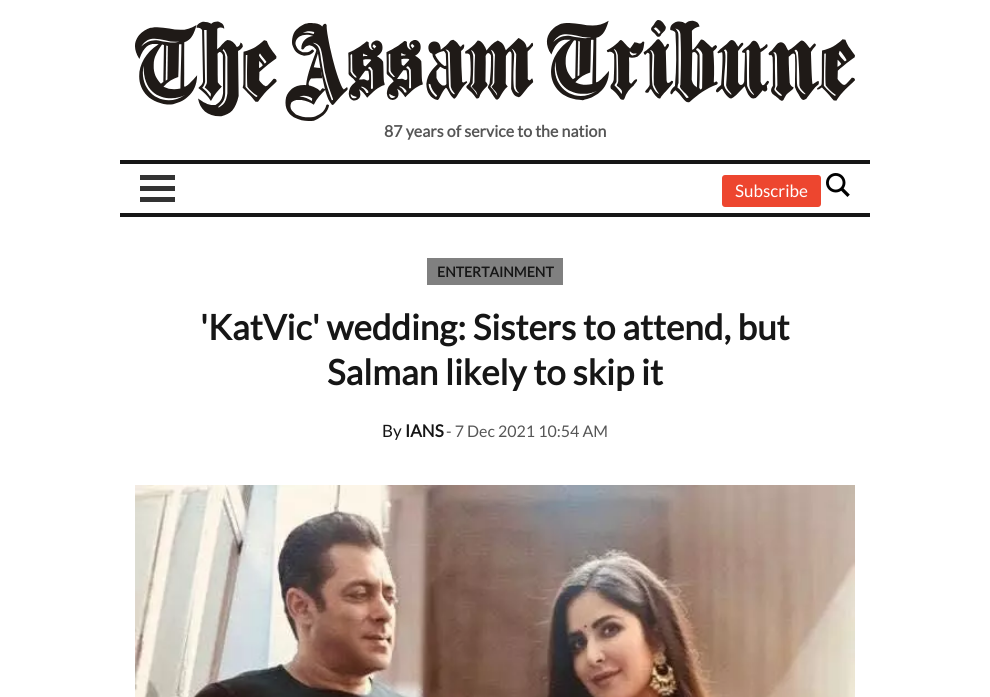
#include <cairo/cairo.h>
#include <math.h>
#include <stddef.h>

static cairo_t *cr;

static void use_color(int r, int g, int b) {
  cairo_set_source_rgb(cr, r / 255.0, g / 255.0, b / 255.0);
}

static void text(double x, double y, const char *s, const char *family, double size, int italic, int bold, int r, int g, int b) {
  cairo_select_font_face(cr, family, italic ? CAIRO_FONT_SLANT_ITALIC : CAIRO_FONT_SLANT_NORMAL,
    bold ? CAIRO_FONT_WEIGHT_BOLD : CAIRO_FONT_WEIGHT_NORMAL);
  cairo_set_font_size(cr, size);
  use_color(r, g, b);
  cairo_move_to(cr, x, y);
  cairo_show_text(cr, s);
}

static void box(double x, double y, double w, double h, int r, int g, int b) {
  use_color(r, g, b);
  cairo_rectangle(cr, x, y, w, h);
  cairo_fill(cr);
}

static void round_rect(double x, double y, double w, double h, double r) {
  cairo_new_sub_path(cr);
  cairo_arc(cr, x + w - r, y + h - r, r, 0, M_PI / 2);
  cairo_arc(cr, x + r, y + h - r, r, M_PI / 2, M_PI);
  cairo_arc(cr, x + r, y + r, r, M_PI, 1.5 * M_PI);
  cairo_arc(cr, x + w - r, y + r, r, 1.5 * M_PI, 2 * M_PI);
  cairo_close_path(cr);
}

static void picture(const char *path, double x, double y, double w, double h) {
  cairo_surface_t *image = cairo_image_surface_create_from_png(path);
  cairo_save(cr);
  cairo_set_source_surface(cr, image, x, y);
  cairo_rectangle(cr, x, y, w, h);
  cairo_fill(cr);
  cairo_restore(cr);
  cairo_surface_destroy(image);
}

static void draw(void) {
  use_color(255, 255, 255);
  cairo_paint(cr);
  picture("img_01.png", 135, 20, 720, 101);
  box(120, 160, 750, 4, 22, 22, 22);
  box(120, 213, 750, 4, 22, 22, 22);
  box(140, 175, 35, 5, 51, 51, 51);
  box(140, 186, 35, 5, 51, 51, 51);
  box(140, 197, 35, 5, 51, 51, 51);
  use_color(237, 70, 47);
  round_rect(722, 175, 99, 32, 3);
  cairo_fill(cr);
  picture("img_02.png", 826, 173, 24, 24);
  box(427, 258, 136, 27, 128, 128, 128);
  picture("img_03.png", 135, 485, 720, 212);
  text(384, 137, "87 years of service to the nation", "Lato", 16, 0, 1, 86, 86, 86);
  text(735, 197, "Subscribe", "Lato", 17, 0, 0, 255, 255, 255);
  text(437, 277, "ENTERTAINMENT", "Lato", 14, 0, 1, 22, 22, 22);
  text(200, 340, "'KatVic' wedding: Sisters to attend, but", "Lato", 35, 0, 1, 22, 22, 22);
  text(327, 385, "Salman likely to skip it", "Lato", 35, 0, 1, 22, 22, 22);
  text(382, 437, "By", "Lato", 17, 0, 0, 22, 22, 22);
  text(405, 437, "IANS", "Lato", 17, 0, 1, 22, 22, 22);
  text(446, 437, "- 7 Dec 2021 10:54 AM", "Lato", 16, 0, 0, 86, 86, 86);
}

int main(void) {
  cairo_surface_t *surface = cairo_image_surface_create(CAIRO_FORMAT_RGB24, 990, 697);
  cr = cairo_create(surface);
  cairo_font_options_t *options = cairo_font_options_create();
  cairo_font_options_set_hint_metrics(options, CAIRO_HINT_METRICS_OFF);
  cairo_font_options_set_hint_style(options, CAIRO_HINT_STYLE_NONE);
  cairo_set_font_options(cr, options);
  cairo_set_miter_limit(cr, 4);
  draw();
  cairo_surface_write_to_png(surface, "out.png");
  cairo_font_options_destroy(options);
  cairo_destroy(cr);
  cairo_surface_destroy(surface);
  return 0;
}
